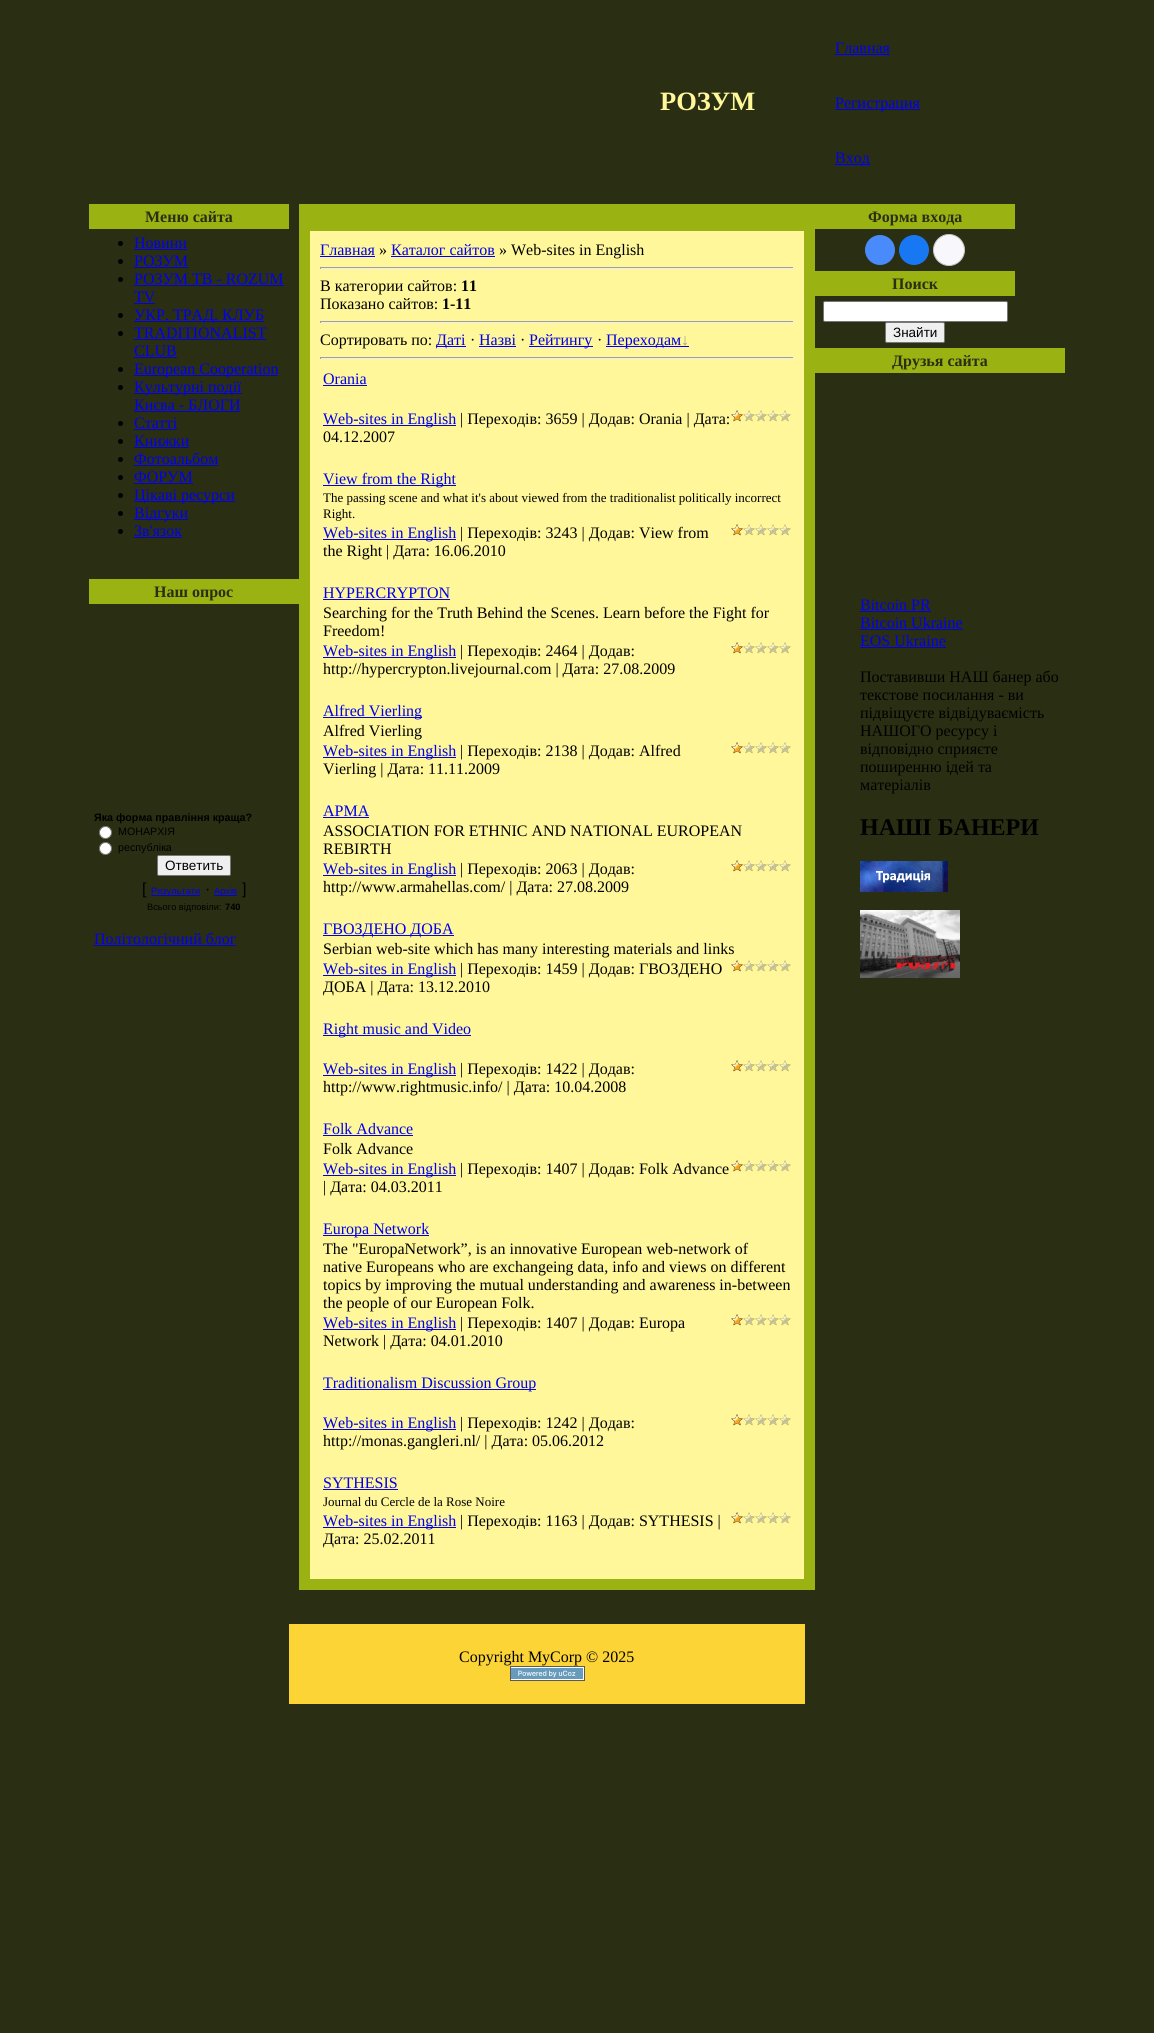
#include <cairo/cairo.h>
#include <math.h>
#include <stddef.h>

static cairo_t *cr;

static void use_color(int r, int g, int b) {
  cairo_set_source_rgb(cr, r / 255.0, g / 255.0, b / 255.0);
}

static void text(double x, double y, const char *s, const char *family, double size, int italic, int bold, int r, int g, int b) {
  cairo_select_font_face(cr, family, italic ? CAIRO_FONT_SLANT_ITALIC : CAIRO_FONT_SLANT_NORMAL,
    bold ? CAIRO_FONT_WEIGHT_BOLD : CAIRO_FONT_WEIGHT_NORMAL);
  cairo_set_font_size(cr, size);
  use_color(r, g, b);
  cairo_move_to(cr, x, y);
  cairo_show_text(cr, s);
}

static void box(double x, double y, double w, double h, int r, int g, int b) {
  use_color(r, g, b);
  cairo_rectangle(cr, x, y, w, h);
  cairo_fill(cr);
}

static void round_rect(double x, double y, double w, double h, double r) {
  cairo_new_sub_path(cr);
  cairo_arc(cr, x + w - r, y + h - r, r, 0, M_PI / 2);
  cairo_arc(cr, x + r, y + h - r, r, M_PI / 2, M_PI);
  cairo_arc(cr, x + r, y + r, r, M_PI, 1.5 * M_PI);
  cairo_arc(cr, x + w - r, y + r, r, 1.5 * M_PI, 2 * M_PI);
  cairo_close_path(cr);
}

static void picture(const char *path, double x, double y, double w, double h) {
  cairo_surface_t *image = cairo_image_surface_create_from_png(path);
  cairo_save(cr);
  cairo_set_source_surface(cr, image, x, y);
  cairo_rectangle(cr, x, y, w, h);
  cairo_fill(cr);
  cairo_restore(cr);
  cairo_surface_destroy(image);
}

static void draw(void) {
  use_color(42, 46, 18);
  cairo_paint(cr);
  box(835, 54, 55, 1, 0, 0, 238);
  box(835, 109, 85, 1, 0, 0, 238);
  box(835, 164, 35, 1, 0, 0, 238);
  box(89, 204, 200, 25, 154, 179, 18);
  use_color(0, 0, 0);
  cairo_arc(cr, 120.5, 243.5, 2.5, 0, 2 * M_PI);
  cairo_fill(cr);
  box(134, 249, 53, 1, 0, 0, 238);
  use_color(0, 0, 0);
  cairo_arc(cr, 120.5, 261.5, 2.5, 0, 2 * M_PI);
  cairo_fill(cr);
  box(134, 267, 54, 1, 0, 0, 238);
  use_color(0, 0, 0);
  cairo_arc(cr, 120.5, 279.5, 2.5, 0, 2 * M_PI);
  cairo_fill(cr);
  box(134, 285, 150, 1, 0, 0, 238);
  box(134, 303, 21, 1, 0, 0, 238);
  use_color(0, 0, 0);
  cairo_arc(cr, 120.5, 315.5, 2.5, 0, 2 * M_PI);
  cairo_fill(cr);
  box(134, 321, 130, 1, 0, 0, 238);
  use_color(0, 0, 0);
  cairo_arc(cr, 120.5, 333.5, 2.5, 0, 2 * M_PI);
  cairo_fill(cr);
  box(134, 339, 132, 1, 0, 0, 238);
  box(134, 357, 43, 1, 0, 0, 238);
  use_color(0, 0, 0);
  cairo_arc(cr, 120.5, 369.5, 2.5, 0, 2 * M_PI);
  cairo_fill(cr);
  box(134, 375, 144, 1, 0, 0, 238);
  use_color(0, 0, 0);
  cairo_arc(cr, 120.5, 387.5, 2.5, 0, 2 * M_PI);
  cairo_fill(cr);
  box(134, 393, 108, 1, 0, 0, 238);
  box(134, 411, 106, 1, 0, 0, 238);
  use_color(0, 0, 0);
  cairo_arc(cr, 120.5, 423.5, 2.5, 0, 2 * M_PI);
  cairo_fill(cr);
  box(134, 429, 43, 1, 0, 0, 238);
  use_color(0, 0, 0);
  cairo_arc(cr, 120.5, 441.5, 2.5, 0, 2 * M_PI);
  cairo_fill(cr);
  box(134, 447, 55, 1, 0, 0, 238);
  use_color(0, 0, 0);
  cairo_arc(cr, 120.5, 459.5, 2.5, 0, 2 * M_PI);
  cairo_fill(cr);
  box(134, 465, 84, 1, 0, 0, 238);
  use_color(0, 0, 0);
  cairo_arc(cr, 120.5, 477.5, 2.5, 0, 2 * M_PI);
  cairo_fill(cr);
  box(134, 483, 59, 1, 0, 0, 238);
  use_color(0, 0, 0);
  cairo_arc(cr, 120.5, 495.5, 2.5, 0, 2 * M_PI);
  cairo_fill(cr);
  box(134, 501, 101, 1, 0, 0, 238);
  use_color(0, 0, 0);
  cairo_arc(cr, 120.5, 513.5, 2.5, 0, 2 * M_PI);
  cairo_fill(cr);
  box(134, 519, 54, 1, 0, 0, 238);
  use_color(0, 0, 0);
  cairo_arc(cr, 120.5, 531.5, 2.5, 0, 2 * M_PI);
  cairo_fill(cr);
  box(134, 537, 48, 1, 0, 0, 238);
  box(89, 579, 210, 25, 154, 179, 18);
  use_color(255, 255, 255);
  cairo_arc(cr, 105.5, 832.5, 6, 0, 2 * M_PI);
  cairo_fill_preserve(cr);
  use_color(118, 118, 118);
  cairo_set_line_width(cr, 1);
  cairo_stroke(cr);
  use_color(255, 255, 255);
  cairo_arc(cr, 105.5, 848.5, 6, 0, 2 * M_PI);
  cairo_fill_preserve(cr);
  use_color(118, 118, 118);
  cairo_stroke(cr);
  use_color(239, 239, 239);
  round_rect(157.5, 855.5, 73, 20, 1.5);
  cairo_fill_preserve(cr);
  use_color(118, 118, 118);
  cairo_stroke(cr);
  box(151, 895, 49, 1, 0, 0, 238);
  box(214, 895, 23, 1, 0, 0, 238);
  box(94, 945, 142, 1, 0, 0, 238);
  box(299, 204, 516, 1386, 154, 179, 18);
  box(310, 231, 494, 1348, 255, 247, 153);
  box(320, 256, 55, 1, 0, 0, 238);
  box(391, 256, 104, 1, 0, 0, 238);
  box(320, 267, 474, 1, 159, 159, 159);
  box(793, 267, 1, 2, 238, 238, 238);
  box(320, 268, 474, 1, 238, 238, 238);
  box(320, 267, 1, 2, 159, 159, 159);
  box(320, 321, 474, 1, 159, 159, 159);
  box(793, 321, 1, 2, 238, 238, 238);
  box(320, 322, 474, 1, 238, 238, 238);
  box(320, 321, 1, 2, 159, 159, 159);
  box(436, 346, 30, 1, 0, 0, 238);
  box(479, 346, 37, 1, 0, 0, 238);
  box(529, 346, 64, 1, 0, 0, 238);
  box(606, 346, 83, 1, 0, 0, 238);
  box(320, 357, 474, 1, 159, 159, 159);
  box(793, 357, 1, 2, 238, 238, 238);
  box(320, 358, 474, 1, 238, 238, 238);
  box(320, 357, 1, 2, 159, 159, 159);
  box(323, 385, 44, 1, 0, 0, 238);
  box(323, 425, 133, 1, 0, 0, 238);
  picture("img_01.png", 731, 410, 60, 12);
  picture("img_02.png", 731, 410, 12, 12);
  box(323, 485, 133, 1, 0, 0, 238);
  box(323, 539, 133, 1, 0, 0, 238);
  picture("img_01.png", 731, 524, 60, 12);
  picture("img_02.png", 731, 524, 12, 12);
  box(323, 599, 127, 1, 0, 0, 238);
  box(323, 657, 133, 1, 0, 0, 238);
  picture("img_01.png", 731, 642, 60, 12);
  picture("img_02.png", 731, 642, 12, 12);
  box(323, 717, 99, 1, 0, 0, 238);
  box(323, 757, 133, 1, 0, 0, 238);
  picture("img_01.png", 731, 742, 60, 12);
  picture("img_02.png", 731, 742, 12, 12);
  box(323, 817, 46, 1, 0, 0, 238);
  box(323, 875, 133, 1, 0, 0, 238);
  picture("img_01.png", 731, 860, 60, 12);
  picture("img_02.png", 731, 860, 12, 12);
  box(323, 935, 131, 1, 0, 0, 238);
  box(323, 975, 133, 1, 0, 0, 238);
  picture("img_01.png", 731, 960, 60, 12);
  picture("img_02.png", 731, 960, 12, 12);
  box(323, 1035, 148, 1, 0, 0, 238);
  box(323, 1075, 133, 1, 0, 0, 238);
  picture("img_01.png", 731, 1060, 60, 12);
  picture("img_02.png", 731, 1060, 12, 12);
  box(323, 1135, 90, 1, 0, 0, 238);
  box(323, 1175, 133, 1, 0, 0, 238);
  picture("img_01.png", 731, 1160, 60, 12);
  picture("img_02.png", 731, 1160, 12, 12);
  box(323, 1235, 106, 1, 0, 0, 238);
  box(323, 1329, 133, 1, 0, 0, 238);
  picture("img_01.png", 731, 1314, 60, 12);
  picture("img_02.png", 731, 1314, 12, 12);
  box(323, 1389, 213, 1, 0, 0, 238);
  box(323, 1429, 133, 1, 0, 0, 238);
  picture("img_01.png", 731, 1414, 60, 12);
  picture("img_02.png", 731, 1414, 12, 12);
  box(323, 1489, 75, 1, 0, 0, 238);
  box(323, 1527, 133, 1, 0, 0, 238);
  picture("img_01.png", 731, 1512, 60, 12);
  picture("img_02.png", 731, 1512, 12, 12);
  box(815, 204, 200, 25, 154, 179, 18);
  use_color(73, 139, 250);
  cairo_arc(cr, 880, 250, 15, 0, 2 * M_PI);
  cairo_fill(cr);
  use_color(24, 119, 242);
  cairo_arc(cr, 914, 250, 15, 0, 2 * M_PI);
  cairo_fill(cr);
  use_color(248, 248, 252);
  cairo_arc(cr, 949, 250, 15.5, 0, 2 * M_PI);
  cairo_fill_preserve(cr);
  use_color(196, 196, 196);
  cairo_stroke(cr);
  box(815, 271, 200, 25, 154, 179, 18);
  use_color(255, 255, 255);
  round_rect(823.5, 301.5, 184, 20, 1.5);
  cairo_fill_preserve(cr);
  use_color(118, 118, 118);
  cairo_stroke(cr);
  use_color(239, 239, 239);
  round_rect(885.5, 322.5, 59, 20, 1.5);
  cairo_fill_preserve(cr);
  use_color(118, 118, 118);
  cairo_stroke(cr);
  box(815, 348, 250, 25, 154, 179, 18);
  box(860, 611, 71, 1, 0, 0, 238);
  box(860, 629, 103, 1, 0, 0, 238);
  box(860, 647, 86, 1, 0, 0, 238);
  picture("img_03.png", 860, 861, 88, 31);
  picture("img_04.png", 860, 910, 100, 68);
  box(289, 1624, 516, 80, 252, 212, 54);
  picture("img_05.png", 510, 1666, 75, 15);
  text(660, 110, "РОЗУМ", "Liberation Serif", 26.5, 0, 1, 255, 247, 153);
  text(835, 53, "Главная", "Liberation Serif", 16, 0, 0, 0, 0, 238);
  text(835, 108, "Регистрация", "Liberation Serif", 16, 0, 0, 0, 0, 238);
  text(835, 163, "Вход", "Liberation Serif", 16, 0, 0, 0, 0, 238);
  text(145, 222, "Меню сайта", "Liberation Serif", 16, 0, 1, 42, 46, 18);
  text(134, 248, "Новини", "Liberation Serif", 16, 0, 0, 0, 0, 238);
  text(134, 266, "РОЗУМ", "Liberation Serif", 16, 0, 0, 0, 0, 238);
  text(134, 284, "РОЗУМ ТВ - ROZUM", "Liberation Serif", 16, 0, 0, 0, 0, 238);
  text(134, 302, "TV", "Liberation Serif", 16, 0, 0, 0, 0, 238);
  text(134, 320, "УКР. ТРАД. КЛУБ", "Liberation Serif", 16, 0, 0, 0, 0, 238);
  text(134, 338, "TRADITIONALIST", "Liberation Serif", 16, 0, 0, 0, 0, 238);
  text(134, 356, "CLUB", "Liberation Serif", 16, 0, 0, 0, 0, 238);
  text(134, 374, "European Cooperation", "Liberation Serif", 16, 0, 0, 0, 0, 238);
  text(134, 392, "Культурні події", "Liberation Serif", 16, 0, 0, 0, 0, 238);
  text(134, 410, "Києва - БЛОГИ", "Liberation Serif", 16, 0, 0, 0, 0, 238);
  text(134, 428, "Статті", "Liberation Serif", 16, 0, 0, 0, 0, 238);
  text(134, 446, "Книжки", "Liberation Serif", 16, 0, 0, 0, 0, 238);
  text(134, 464, "Фотоальбом", "Liberation Serif", 16, 0, 0, 0, 0, 238);
  text(134, 482, "ФОРУМ", "Liberation Serif", 16, 0, 0, 0, 0, 238);
  text(134, 500, "Цікаві ресурси", "Liberation Serif", 16, 0, 0, 0, 0, 238);
  text(134, 518, "Відгуки", "Liberation Serif", 16, 0, 0, 0, 0, 238);
  text(134, 536, "Зв'язок", "Liberation Serif", 16, 0, 0, 0, 0, 238);
  text(154, 597, "Наш опрос", "Liberation Serif", 16, 0, 1, 42, 46, 18);
  text(94, 821, "Яка форма правління краща?", "Liberation Sans", 10.7, 0, 1, 0, 0, 0);
  text(118, 835, "МОНАРХІЯ", "Liberation Sans", 10.7, 0, 0, 0, 0, 0);
  text(118, 851, "республіка", "Liberation Sans", 10.7, 0, 0, 0, 0, 0);
  text(165, 870, "Ответить", "Liberation Sans", 13.5, 0, 0, 0, 0, 0);
  text(142, 894, "[", "Liberation Sans", 16, 0, 0, 0, 0, 0);
  text(151, 894, "Результати", "Liberation Sans", 9.25, 0, 0, 0, 0, 238);
  text(205, 894, "·", "Liberation Sans", 16, 0, 0, 0, 0, 0);
  text(214, 894, "Архів", "Liberation Sans", 9.25, 0, 0, 0, 0, 238);
  text(242, 894, "]", "Liberation Sans", 16, 0, 0, 0, 0, 0);
  text(147, 910, "Всього відповіли:", "Liberation Sans", 9.25, 0, 0, 0, 0, 0);
  text(225, 910, "740", "Liberation Sans", 9.25, 0, 1, 0, 0, 0);
  text(94, 944, "Політологічний блог", "Liberation Serif", 16, 0, 0, 0, 0, 238);
  text(320, 255, "Главная", "Liberation Serif", 16, 0, 0, 0, 0, 238);
  text(379, 255, "»", "Liberation Serif", 16, 0, 0, 0, 0, 0);
  text(391, 255, "Каталог сайтов", "Liberation Serif", 16, 0, 0, 0, 0, 238);
  text(499, 255, "» Web-sites in English", "Liberation Serif", 16, 0, 0, 0, 0, 0);
  text(320, 291, "В категории сайтов:", "Liberation Serif", 16, 0, 0, 0, 0, 0);
  text(461, 291, "11", "Liberation Serif", 16, 0, 1, 0, 0, 0);
  text(320, 309, "Показано сайтов:", "Liberation Serif", 16, 0, 0, 0, 0, 0);
  text(442, 309, "1-11", "Liberation Serif", 16, 0, 1, 0, 0, 0);
  text(320, 345, "Сортировать по:", "Liberation Serif", 16, 0, 0, 0, 0, 0);
  text(436, 345, "Даті", "Liberation Serif", 16, 0, 0, 0, 0, 238);
  text(470, 345, "·", "Liberation Serif", 16, 0, 0, 0, 0, 0);
  text(479, 345, "Назві", "Liberation Serif", 16, 0, 0, 0, 0, 238);
  text(520, 345, "·", "Liberation Serif", 16, 0, 0, 0, 0, 0);
  text(529, 345, "Рейтингу", "Liberation Serif", 16, 0, 0, 0, 0, 238);
  text(597, 345, "·", "Liberation Serif", 16, 0, 0, 0, 0, 0);
  text(606, 345, "Переходам", "Liberation Serif", 16, 0, 0, 0, 0, 238);
  text(681, 345, "↓", "Liberation Serif", 16, 0, 0, 160, 158, 134);
  text(323, 384, "Orania", "Liberation Serif", 16, 0, 0, 0, 0, 238);
  text(323, 424, "Web-sites in English", "Liberation Serif", 16, 0, 0, 0, 0, 238);
  text(460, 424, "| Переходів: 3659 | Додав: Orania | Дата:", "Liberation Serif", 16, 0, 0, 0, 0, 0);
  text(323, 442, "04.12.2007", "Liberation Serif", 16, 0, 0, 0, 0, 0);
  text(323, 484, "View from the Right", "Liberation Serif", 16, 0, 0, 0, 0, 238);
  text(323, 502, "The passing scene and what it's about viewed from the traditionalist politically incorrect", "Liberation Serif", 13, 0, 0, 0, 0, 0);
  text(323, 518, "Right.", "Liberation Serif", 13, 0, 0, 0, 0, 0);
  text(323, 538, "Web-sites in English", "Liberation Serif", 16, 0, 0, 0, 0, 238);
  text(460, 538, "| Переходів: 3243 | Додав: View from", "Liberation Serif", 16, 0, 0, 0, 0, 0);
  text(323, 556, "the Right | Дата: 16.06.2010", "Liberation Serif", 16, 0, 0, 0, 0, 0);
  text(323, 598, "HYPERCRYPTON", "Liberation Serif", 16, 0, 0, 0, 0, 238);
  text(323, 618, "Searching for the Truth Behind the Scenes. Learn before the Fight for", "Liberation Serif", 16, 0, 0, 0, 0, 0);
  text(323, 636, "Freedom!", "Liberation Serif", 16, 0, 0, 0, 0, 0);
  text(323, 656, "Web-sites in English", "Liberation Serif", 16, 0, 0, 0, 0, 238);
  text(460, 656, "| Переходів: 2464 | Додав:", "Liberation Serif", 16, 0, 0, 0, 0, 0);
  text(323, 674, "http://hypercrypton.livejournal.com | Дата: 27.08.2009", "Liberation Serif", 16, 0, 0, 0, 0, 0);
  text(323, 716, "Alfred Vierling", "Liberation Serif", 16, 0, 0, 0, 0, 238);
  text(323, 736, "Alfred Vierling", "Liberation Serif", 16, 0, 0, 0, 0, 0);
  text(323, 756, "Web-sites in English", "Liberation Serif", 16, 0, 0, 0, 0, 238);
  text(460, 756, "| Переходів: 2138 | Додав: Alfred", "Liberation Serif", 16, 0, 0, 0, 0, 0);
  text(323, 774, "Vierling | Дата: 11.11.2009", "Liberation Serif", 16, 0, 0, 0, 0, 0);
  text(323, 816, "ΑΡΜΑ", "Liberation Serif", 16, 0, 0, 0, 0, 238);
  text(323, 836, "ASSOCIATION FOR ETHNIC AND NATIONAL EUROPEAN", "Liberation Serif", 16, 0, 0, 0, 0, 0);
  text(323, 854, "REBIRTH", "Liberation Serif", 16, 0, 0, 0, 0, 0);
  text(323, 874, "Web-sites in English", "Liberation Serif", 16, 0, 0, 0, 0, 238);
  text(460, 874, "| Переходів: 2063 | Додав:", "Liberation Serif", 16, 0, 0, 0, 0, 0);
  text(323, 892, "http://www.armahellas.com/ | Дата: 27.08.2009", "Liberation Serif", 16, 0, 0, 0, 0, 0);
  text(323, 934, "ГВОЗДЕНО ДОБА", "Liberation Serif", 16, 0, 0, 0, 0, 238);
  text(323, 954, "Serbian web-site which has many interesting materials and links", "Liberation Serif", 16, 0, 0, 0, 0, 0);
  text(323, 974, "Web-sites in English", "Liberation Serif", 16, 0, 0, 0, 0, 238);
  text(460, 974, "| Переходів: 1459 | Додав: ГВОЗДЕНО", "Liberation Serif", 16, 0, 0, 0, 0, 0);
  text(323, 992, "ДОБА | Дата: 13.12.2010", "Liberation Serif", 16, 0, 0, 0, 0, 0);
  text(323, 1034, "Right music and Video", "Liberation Serif", 16, 0, 0, 0, 0, 238);
  text(323, 1074, "Web-sites in English", "Liberation Serif", 16, 0, 0, 0, 0, 238);
  text(460, 1074, "| Переходів: 1422 | Додав:", "Liberation Serif", 16, 0, 0, 0, 0, 0);
  text(323, 1092, "http://www.rightmusic.info/ | Дата: 10.04.2008", "Liberation Serif", 16, 0, 0, 0, 0, 0);
  text(323, 1134, "Folk Advance", "Liberation Serif", 16, 0, 0, 0, 0, 238);
  text(323, 1154, "Folk Advance", "Liberation Serif", 16, 0, 0, 0, 0, 0);
  text(323, 1174, "Web-sites in English", "Liberation Serif", 16, 0, 0, 0, 0, 238);
  text(460, 1174, "| Переходів: 1407 | Додав: Folk Advance", "Liberation Serif", 16, 0, 0, 0, 0, 0);
  text(323, 1192, "| Дата: 04.03.2011", "Liberation Serif", 16, 0, 0, 0, 0, 0);
  text(323, 1234, "Europa Network", "Liberation Serif", 16, 0, 0, 0, 0, 238);
  text(323, 1254, "The \"EuropaNetwork”, is an innovative European web-network of", "Liberation Serif", 16, 0, 0, 0, 0, 0);
  text(323, 1272, "native Europeans who are exchangeing data, info and views on different", "Liberation Serif", 16, 0, 0, 0, 0, 0);
  text(323, 1290, "topics by improving the mutual understanding and awareness in-between", "Liberation Serif", 16, 0, 0, 0, 0, 0);
  text(323, 1308, "the people of our European Folk.", "Liberation Serif", 16, 0, 0, 0, 0, 0);
  text(323, 1328, "Web-sites in English", "Liberation Serif", 16, 0, 0, 0, 0, 238);
  text(460, 1328, "| Переходів: 1407 | Додав: Europa", "Liberation Serif", 16, 0, 0, 0, 0, 0);
  text(323, 1346, "Network | Дата: 04.01.2010", "Liberation Serif", 16, 0, 0, 0, 0, 0);
  text(323, 1388, "Traditionalism Discussion Group", "Liberation Serif", 16, 0, 0, 0, 0, 238);
  text(323, 1428, "Web-sites in English", "Liberation Serif", 16, 0, 0, 0, 0, 238);
  text(460, 1428, "| Переходів: 1242 | Додав:", "Liberation Serif", 16, 0, 0, 0, 0, 0);
  text(323, 1446, "http://monas.gangleri.nl/ | Дата: 05.06.2012", "Liberation Serif", 16, 0, 0, 0, 0, 0);
  text(323, 1488, "SYTHESIS", "Liberation Serif", 16, 0, 0, 0, 0, 238);
  text(323, 1506, "Journal du Cercle de la Rose Noire", "Liberation Serif", 13, 0, 0, 0, 0, 0);
  text(323, 1526, "Web-sites in English", "Liberation Serif", 16, 0, 0, 0, 0, 238);
  text(460, 1526, "| Переходів: 1163 | Додав: SYTHESIS |", "Liberation Serif", 16, 0, 0, 0, 0, 0);
  text(323, 1544, "Дата: 25.02.2011", "Liberation Serif", 16, 0, 0, 0, 0, 0);
  text(868, 222, "Форма входа", "Liberation Serif", 16, 0, 1, 42, 46, 18);
  text(892, 289, "Поиск", "Liberation Serif", 16, 0, 1, 42, 46, 18);
  text(893, 337, "Знайти", "Liberation Sans", 13.5, 0, 0, 0, 0, 0);
  text(892, 366, "Друзья сайта", "Liberation Serif", 16, 0, 1, 42, 46, 18);
  text(860, 610, "Bitcoin PR", "Liberation Serif", 16, 0, 0, 0, 0, 238);
  text(860, 628, "Bitcoin Ukraine", "Liberation Serif", 16, 0, 0, 0, 0, 238);
  text(860, 646, "EOS Ukraine", "Liberation Serif", 16, 0, 0, 0, 0, 238);
  text(860, 682, "Поставивши НАШ банер або", "Liberation Serif", 16, 0, 0, 0, 0, 0);
  text(860, 700, "текстове посилання - ви", "Liberation Serif", 16, 0, 0, 0, 0, 0);
  text(860, 718, "підвіщуєте відвідуваємість", "Liberation Serif", 16, 0, 0, 0, 0, 0);
  text(860, 736, "НАШОГО ресурсу і", "Liberation Serif", 16, 0, 0, 0, 0, 0);
  text(860, 754, "відповідно сприяєте", "Liberation Serif", 16, 0, 0, 0, 0, 0);
  text(860, 772, "поширенню ідей та", "Liberation Serif", 16, 0, 0, 0, 0, 0);
  text(860, 790, "матеріалів", "Liberation Serif", 16, 0, 0, 0, 0, 0);
  text(860, 835, "НАШІ БАНЕРИ", "Liberation Serif", 24, 0, 1, 0, 0, 0);
  text(459, 1662, "Copyright MyCorp © 2025", "Liberation Serif", 16, 0, 0, 0, 0, 0);
}

int main(void) {
  cairo_surface_t *surface = cairo_image_surface_create(CAIRO_FORMAT_RGB24, 1154, 2033);
  cr = cairo_create(surface);
  cairo_font_options_t *options = cairo_font_options_create();
  cairo_font_options_set_hint_metrics(options, CAIRO_HINT_METRICS_OFF);
  cairo_font_options_set_hint_style(options, CAIRO_HINT_STYLE_NONE);
  cairo_set_font_options(cr, options);
  cairo_set_miter_limit(cr, 4);
  draw();
  cairo_surface_write_to_png(surface, "out.png");
  cairo_font_options_destroy(options);
  cairo_destroy(cr);
  cairo_surface_destroy(surface);
  return 0;
}
